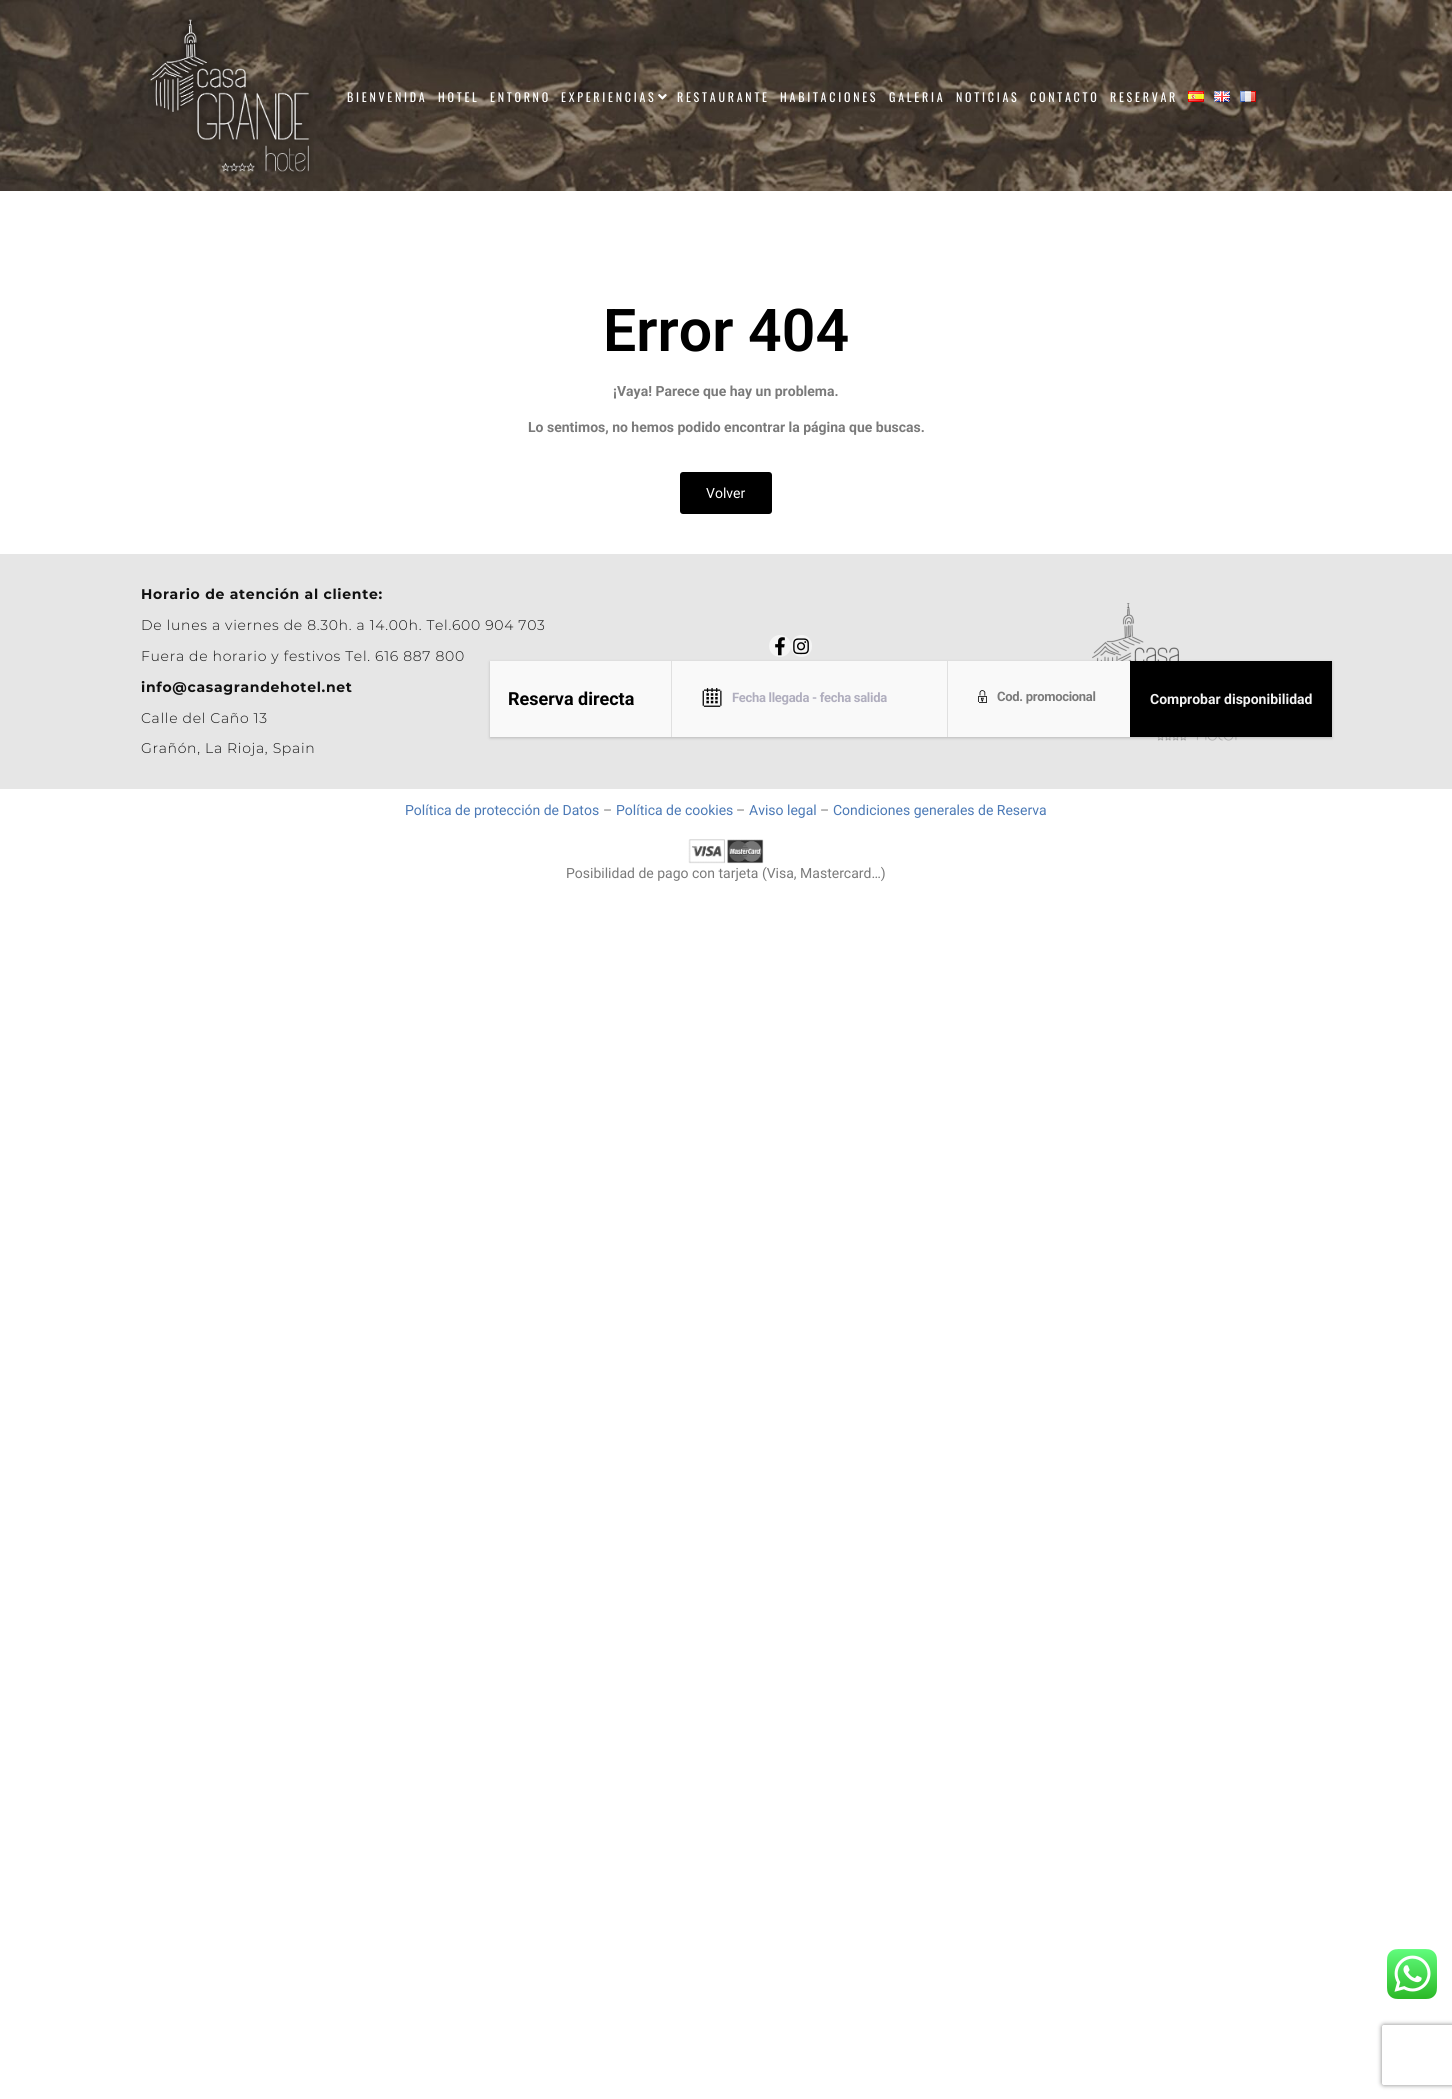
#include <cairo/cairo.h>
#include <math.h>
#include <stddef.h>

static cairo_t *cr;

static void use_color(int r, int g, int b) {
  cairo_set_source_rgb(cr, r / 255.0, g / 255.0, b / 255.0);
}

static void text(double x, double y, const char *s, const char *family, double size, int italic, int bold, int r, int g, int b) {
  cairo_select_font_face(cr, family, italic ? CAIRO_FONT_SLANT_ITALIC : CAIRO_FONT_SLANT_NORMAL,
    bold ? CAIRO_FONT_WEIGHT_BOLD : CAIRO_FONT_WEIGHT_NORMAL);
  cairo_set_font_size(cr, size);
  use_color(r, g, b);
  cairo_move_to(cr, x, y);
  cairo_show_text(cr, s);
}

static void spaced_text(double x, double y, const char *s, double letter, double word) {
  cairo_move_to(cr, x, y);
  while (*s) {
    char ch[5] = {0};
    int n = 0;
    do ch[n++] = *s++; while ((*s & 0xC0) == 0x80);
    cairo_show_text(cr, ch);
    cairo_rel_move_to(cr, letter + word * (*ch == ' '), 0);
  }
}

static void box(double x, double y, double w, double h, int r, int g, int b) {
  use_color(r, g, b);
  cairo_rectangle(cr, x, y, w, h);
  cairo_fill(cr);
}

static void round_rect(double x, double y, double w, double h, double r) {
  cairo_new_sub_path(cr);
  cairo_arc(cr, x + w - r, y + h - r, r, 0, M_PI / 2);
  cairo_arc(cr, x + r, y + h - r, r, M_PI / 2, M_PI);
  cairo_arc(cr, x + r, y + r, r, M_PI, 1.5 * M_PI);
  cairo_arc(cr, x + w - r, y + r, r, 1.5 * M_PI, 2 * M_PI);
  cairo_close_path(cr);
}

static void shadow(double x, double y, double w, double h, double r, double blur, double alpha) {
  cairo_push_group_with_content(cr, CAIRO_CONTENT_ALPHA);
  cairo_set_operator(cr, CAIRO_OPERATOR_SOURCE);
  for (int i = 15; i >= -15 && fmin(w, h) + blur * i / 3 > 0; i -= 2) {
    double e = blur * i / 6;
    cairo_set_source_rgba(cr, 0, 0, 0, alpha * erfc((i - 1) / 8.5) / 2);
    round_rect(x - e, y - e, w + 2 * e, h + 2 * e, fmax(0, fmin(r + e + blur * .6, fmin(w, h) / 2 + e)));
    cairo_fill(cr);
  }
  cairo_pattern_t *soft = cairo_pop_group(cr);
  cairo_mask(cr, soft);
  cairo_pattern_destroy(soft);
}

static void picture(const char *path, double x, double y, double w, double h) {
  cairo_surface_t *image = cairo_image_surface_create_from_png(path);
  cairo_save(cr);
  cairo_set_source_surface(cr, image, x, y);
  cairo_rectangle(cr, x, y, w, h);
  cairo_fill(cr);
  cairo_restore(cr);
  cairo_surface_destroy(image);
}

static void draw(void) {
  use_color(255, 255, 255);
  cairo_paint(cr);
  picture("img_01.png", 0, 0, 1452, 191);
  picture("img_02.png", 148, 17, 166, 161);
  picture("img_03.png", 658, 94, 9, 6);
  picture("img_04.png", 1188, 91, 16, 11);
  picture("img_05.png", 1214, 91, 16, 11);
  picture("img_06.png", 1240, 91, 16, 11);
  use_color(0, 0, 0);
  round_rect(681, 473, 90, 40, 2);
  cairo_fill_preserve(cr);
  cairo_stroke(cr);
  box(0, 554, 1452, 235, 230, 230, 230);
  use_color(245, 245, 245);
  cairo_arc(cr, 780, 646, 11, 0, 2 * M_PI);
  cairo_fill(cr);
  picture("img_07.png", 775, 637, 10, 19);
  round_rect(791, 635, 21, 22, 10.5);
  cairo_fill(cr);
  picture("img_08.png", 793, 638, 16, 17);
  picture("img_09.png", 1092, 603, 145, 138);
  picture("img_10.png", 688, 839, 76, 25);
  use_color(0, 0, 0);
  shadow(490, 662, 842, 76, 0, 1.5, 0.2);
  box(490, 661, 640, 76, 249, 249, 249);
  box(671, 661, 1, 76, 224, 224, 224);
  picture("img_11.png", 702, 688, 20, 19);
  box(947, 661, 1, 76, 224, 224, 224);
  picture("img_12.png", 978, 690, 9, 13);
  box(1130, 661, 202, 76, 0, 0, 0);
  picture("img_13.png", 1387, 1949, 50, 50);
  cairo_save(cr);
  cairo_set_fill_rule(cr, CAIRO_FILL_RULE_EVEN_ODD);
  cairo_new_path(cr);
  cairo_move_to(cr, 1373, 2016);
  cairo_line_to(cr, 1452, 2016);
  cairo_line_to(cr, 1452, 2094);
  cairo_line_to(cr, 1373, 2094);
  cairo_close_path(cr);
  cairo_move_to(cr, 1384, 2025);
  cairo_line_to(cr, 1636, 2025);
  cairo_curve_to(cr, 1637, 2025, 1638, 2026, 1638, 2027);
  cairo_line_to(cr, 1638, 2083);
  cairo_curve_to(cr, 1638, 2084, 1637, 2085, 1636, 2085);
  cairo_line_to(cr, 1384, 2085);
  cairo_curve_to(cr, 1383, 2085, 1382, 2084, 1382, 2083);
  cairo_line_to(cr, 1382, 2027);
  cairo_curve_to(cr, 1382, 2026, 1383, 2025, 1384, 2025);
  cairo_close_path(cr);
  cairo_clip(cr);
  use_color(128, 128, 128);
  shadow(1382, 2025, 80, 60, 2, 2.5, 1);
  cairo_restore(cr);
  cairo_select_font_face(cr, "Oswald", CAIRO_FONT_SLANT_NORMAL, CAIRO_FONT_WEIGHT_NORMAL);
  cairo_set_font_size(cr, 12);
  use_color(255, 255, 255);
  spaced_text(347, 102, "BIENVENIDA", 2.75, 0);
  spaced_text(438, 102, "HOTEL", 2.75, 0);
  spaced_text(490, 102, "ENTORNO", 2.75, 0);
  spaced_text(561, 102, "EXPERIENCIAS", 2.75, 0);
  spaced_text(677, 102, "RESTAURANTE", 2.75, 0);
  spaced_text(780, 102, "HABITACIONES", 2.75, 0);
  spaced_text(889, 102, "GALERIA", 2.75, 0);
  spaced_text(956, 102, "NOTICIAS", 2.75, 0);
  spaced_text(1030, 102, "CONTACTO", 2.75, 0);
  spaced_text(1110, 102, "RESERVAR", 2.75, 0);
  text(603, 351, "Error 404", "Roboto SemiBold", 59, 0, 0, 0, 0, 0);
  text(613, 396, "¡Vaya! Parece que hay un problema.", "Roboto", 14, 0, 1, 122, 122, 122);
  text(528, 432, "Lo sentimos, no hemos podido encontrar la página que buscas.", "Roboto", 14, 0, 1, 122, 122, 122);
  text(706, 498, "Volver", "Roboto", 14, 0, 0, 255, 255, 255);
  cairo_select_font_face(cr, "Montserrat", CAIRO_FONT_SLANT_NORMAL, CAIRO_FONT_WEIGHT_BOLD);
  use_color(17, 17, 17);
  spaced_text(141, 599, "Horario de atención al cliente:", 0.7, 0);
  cairo_select_font_face(cr, "Montserrat Light", CAIRO_FONT_SLANT_NORMAL, CAIRO_FONT_WEIGHT_NORMAL);
  spaced_text(141, 630, "De lunes a viernes de 8.30h. a 14.00h. Tel.600 904 703", 0.7, 0);
  spaced_text(141, 661, "Fuera de horario y festivos Tel. 616 887 800", 0.7, 0);
  cairo_select_font_face(cr, "Montserrat", CAIRO_FONT_SLANT_NORMAL, CAIRO_FONT_WEIGHT_BOLD);
  spaced_text(141, 692, "info@casagrandehotel.net", 0.7, 0);
  cairo_select_font_face(cr, "Montserrat Light", CAIRO_FONT_SLANT_NORMAL, CAIRO_FONT_WEIGHT_NORMAL);
  spaced_text(141, 723, "Calle del Caño 13", 0.7, 0);
  spaced_text(141, 753, "Grañón, La Rioja, Spain", 0.7, 0);
  text(405, 815, "Política de protección de Datos", "Roboto", 14, 0, 0, 75, 121, 182);
  text(603, 815, "–", "Roboto", 14, 0, 0, 122, 122, 122);
  text(616, 815, "Política de cookies", "Roboto", 14, 0, 0, 75, 121, 182);
  text(736, 815, "–", "Roboto", 14, 0, 0, 122, 122, 122);
  text(749, 815, "Aviso legal", "Roboto", 14, 0, 0, 75, 121, 182);
  text(820, 815, "–", "Roboto", 14, 0, 0, 122, 122, 122);
  text(833, 815, "Condiciones generales de Reserva", "Roboto", 14, 0, 0, 75, 121, 182);
  text(566, 878, "Posibilidad de pago con tarjeta (Visa, Mastercard…)", "Roboto", 14, 0, 0, 122, 122, 122);
  text(508, 705, "Reserva directa", "Roboto", 18, 0, 1, 0, 0, 0);
  cairo_set_font_size(cr, 13);
  use_color(176, 174, 190);
  spaced_text(732, 702, "Fecha llegada - fecha salida", -0.3, 0);
  use_color(122, 122, 122);
  spaced_text(997, 701, "Cod. promocional", -0.3, 0);
  text(1150, 704, "Comprobar disponibilidad", "Roboto", 14, 0, 1, 243, 243, 243);
}

int main(void) {
  cairo_surface_t *surface = cairo_image_surface_create(CAIRO_FORMAT_RGB24, 1452, 2099);
  cr = cairo_create(surface);
  cairo_font_options_t *options = cairo_font_options_create();
  cairo_font_options_set_hint_metrics(options, CAIRO_HINT_METRICS_OFF);
  cairo_font_options_set_hint_style(options, CAIRO_HINT_STYLE_NONE);
  cairo_set_font_options(cr, options);
  cairo_set_miter_limit(cr, 4);
  draw();
  cairo_surface_write_to_png(surface, "out.png");
  cairo_font_options_destroy(options);
  cairo_destroy(cr);
  cairo_surface_destroy(surface);
  return 0;
}
